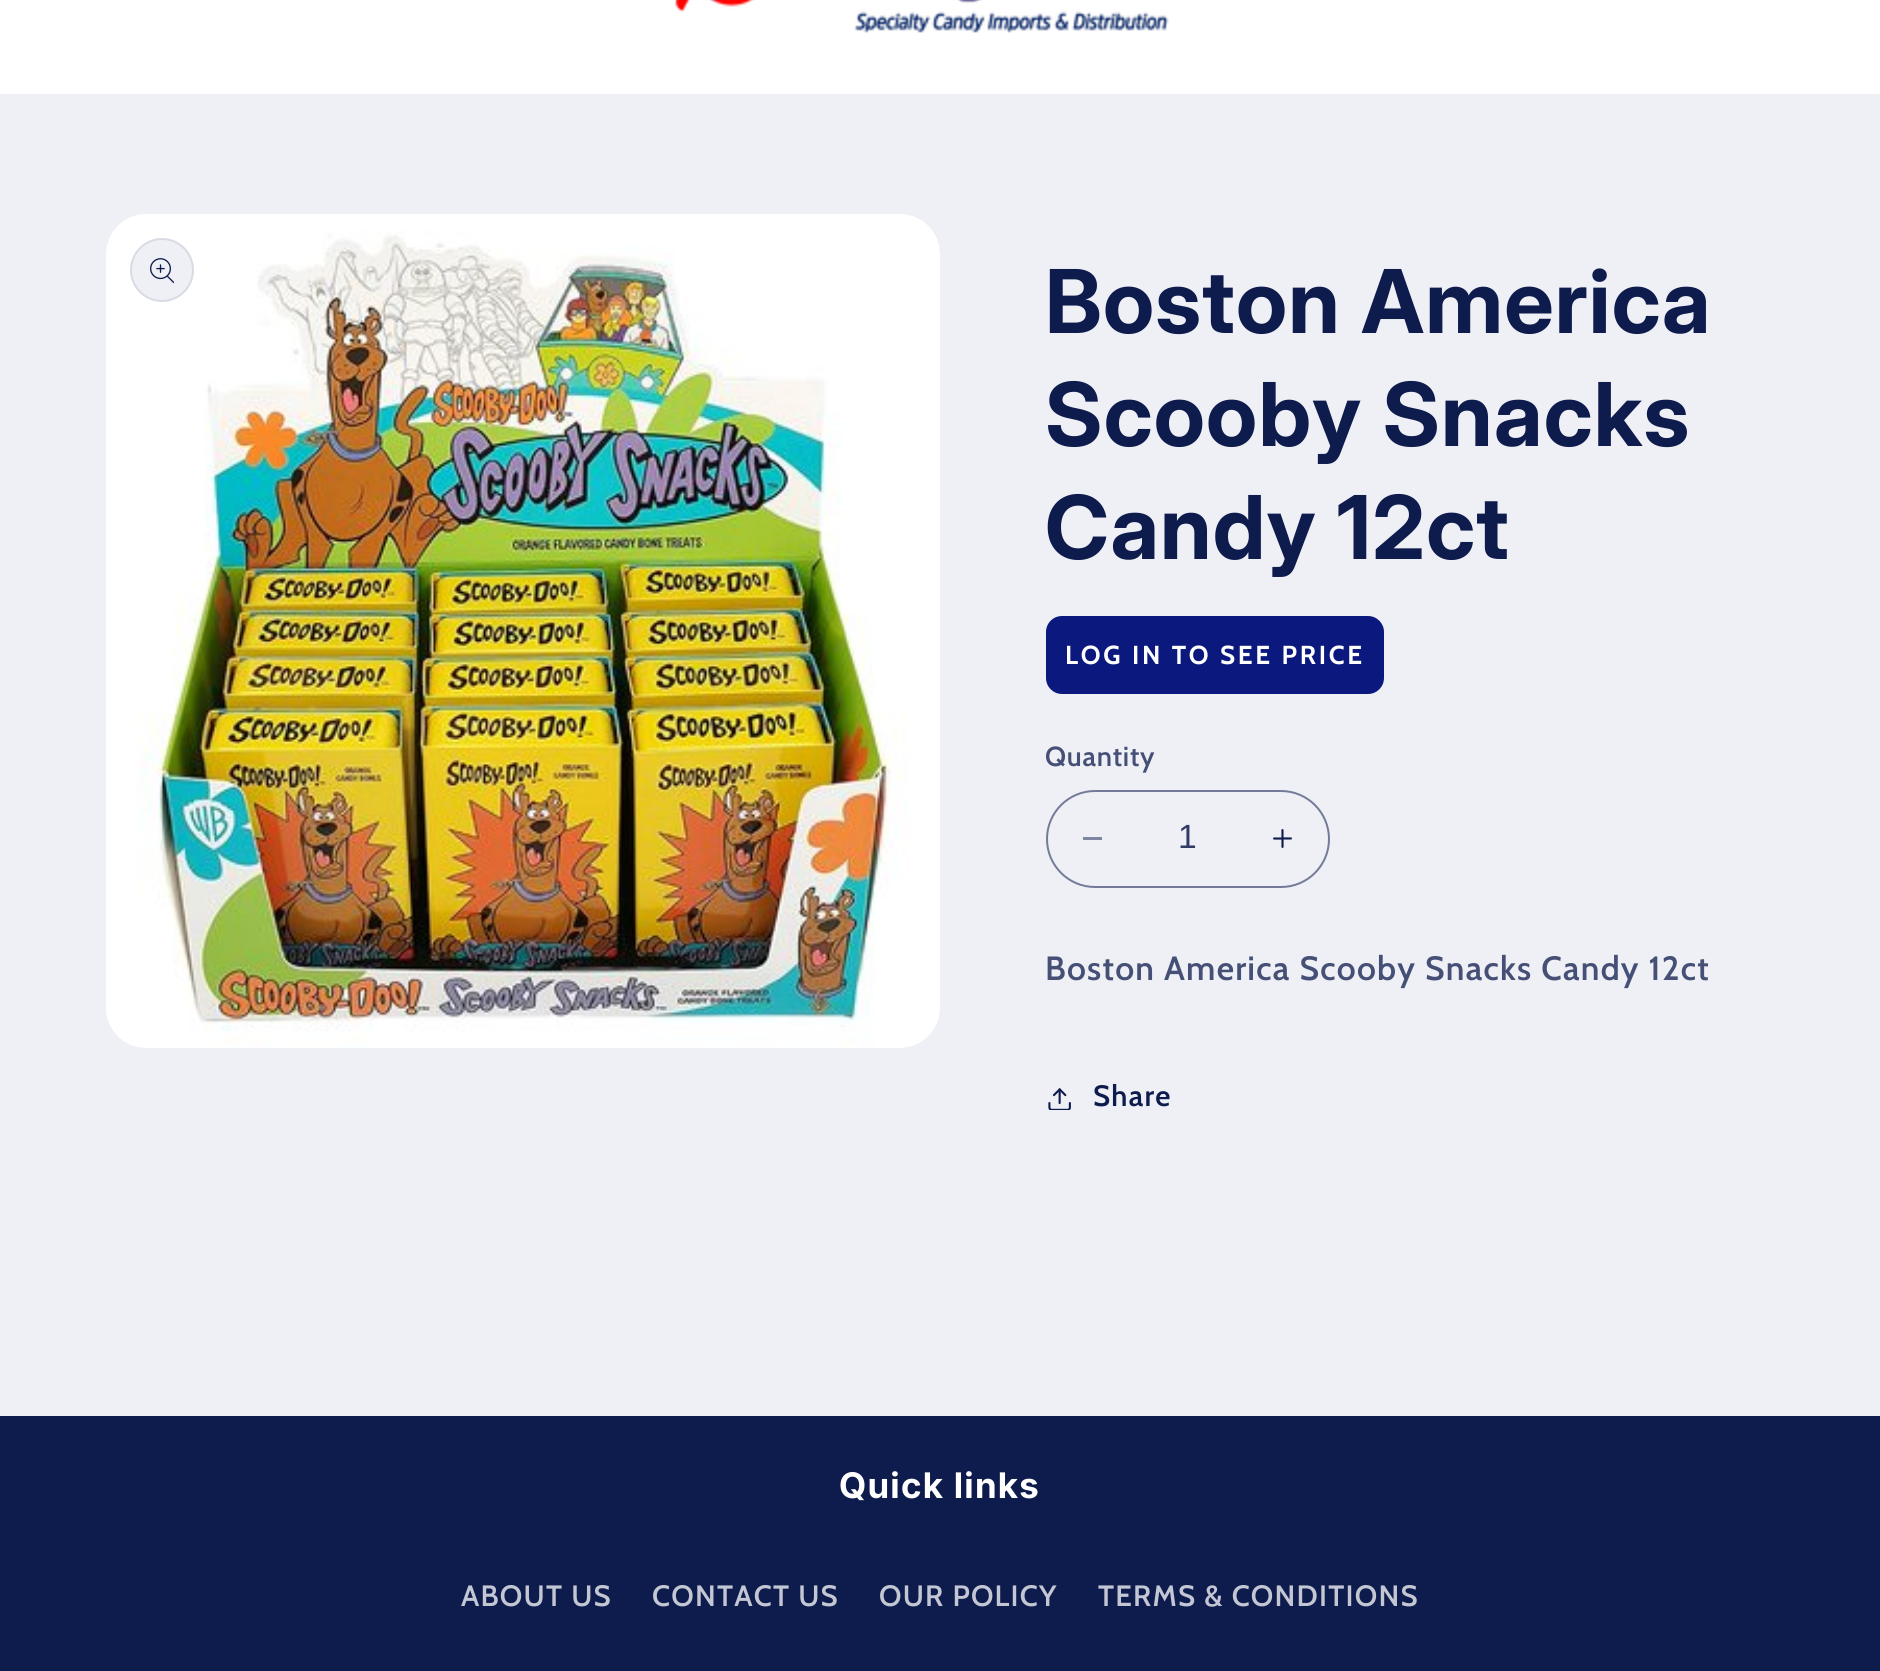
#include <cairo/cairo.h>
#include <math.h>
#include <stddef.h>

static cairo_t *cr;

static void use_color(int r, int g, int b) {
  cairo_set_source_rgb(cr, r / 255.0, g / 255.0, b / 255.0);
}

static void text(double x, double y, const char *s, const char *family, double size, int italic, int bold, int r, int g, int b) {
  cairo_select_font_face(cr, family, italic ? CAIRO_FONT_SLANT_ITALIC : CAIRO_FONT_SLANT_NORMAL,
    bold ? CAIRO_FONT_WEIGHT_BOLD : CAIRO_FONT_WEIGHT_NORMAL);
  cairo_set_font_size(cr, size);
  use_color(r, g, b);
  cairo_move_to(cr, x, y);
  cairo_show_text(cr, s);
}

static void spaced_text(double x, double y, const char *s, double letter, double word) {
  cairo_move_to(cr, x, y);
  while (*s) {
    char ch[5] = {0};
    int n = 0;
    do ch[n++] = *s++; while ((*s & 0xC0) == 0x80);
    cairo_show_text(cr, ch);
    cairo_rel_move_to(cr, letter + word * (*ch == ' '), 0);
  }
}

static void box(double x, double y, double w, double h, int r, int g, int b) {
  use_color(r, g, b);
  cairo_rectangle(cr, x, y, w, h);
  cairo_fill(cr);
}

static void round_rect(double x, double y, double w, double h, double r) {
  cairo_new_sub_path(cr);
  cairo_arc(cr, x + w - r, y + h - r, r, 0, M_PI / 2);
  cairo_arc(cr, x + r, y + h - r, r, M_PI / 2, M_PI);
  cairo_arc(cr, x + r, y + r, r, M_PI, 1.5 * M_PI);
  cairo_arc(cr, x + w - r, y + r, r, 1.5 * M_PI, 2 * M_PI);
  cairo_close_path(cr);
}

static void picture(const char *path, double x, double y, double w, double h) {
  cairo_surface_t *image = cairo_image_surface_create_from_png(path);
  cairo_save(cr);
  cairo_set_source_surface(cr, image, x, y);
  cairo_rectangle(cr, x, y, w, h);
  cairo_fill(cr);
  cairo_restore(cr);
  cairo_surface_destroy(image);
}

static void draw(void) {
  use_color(239, 240, 245);
  cairo_paint(cr);
  box(0, 0, 1880, 94, 255, 255, 255);
  picture("img_01.png", 675, 0, 494, 33);
  picture("img_02.png", 106, 214, 834, 834);
  use_color(239, 240, 245);
  cairo_arc(cr, 162, 270, 32, 0, 2 * M_PI);
  cairo_fill(cr);
  cairo_arc(cr, 162, 270, 31, 0, 2 * M_PI);
  cairo_set_source_rgba(cr, 0.055, 0.106, 0.302, 0.1);
  cairo_stroke(cr);
  picture("img_03.png", 150, 258, 24, 26);
  use_color(11, 25, 127);
  round_rect(1046, 616, 338, 78, 16);
  cairo_fill(cr);
  box(1083, 837, 19, 3, 127, 134, 161);
  picture("img_04.png", 1273, 829, 19, 19);
  round_rect(1047, 791, 282, 96, 48);
  use_color(115, 123, 153);
  cairo_stroke(cr);
  picture("img_05.png", 1048, 1088, 23, 22);
  box(0, 1416, 1880, 255, 14, 27, 77);
  cairo_select_font_face(cr, "Inter", CAIRO_FONT_SLANT_NORMAL, CAIRO_FONT_WEIGHT_BOLD);
  cairo_set_font_size(cr, 88);
  spaced_text(1045, 333, "Boston America", 1.25, 0);
  spaced_text(1045, 446, "Scooby Snacks", 1.25, 0);
  spaced_text(1045, 559, "Candy 12ct", 1.25, 0);
  cairo_select_font_face(cr, "Cabin", CAIRO_FONT_SLANT_NORMAL, CAIRO_FONT_WEIGHT_BOLD);
  cairo_set_font_size(cr, 26);
  use_color(255, 255, 255);
  spaced_text(1065, 664, "LOG IN TO SEE PRICE", 2.75, 0);
  cairo_select_font_face(cr, "Cabin SemiBold", CAIRO_FONT_SLANT_NORMAL, CAIRO_FONT_WEIGHT_NORMAL);
  cairo_set_font_size(cr, 27.5);
  use_color(70, 80, 119);
  spaced_text(1045, 766, "Quantity", 0.75, 0);
  text(1178, 848, "1", "Liberation Sans", 33.6, 0, 0, 48, 59, 102);
  cairo_select_font_face(cr, "Cabin SemiBold", CAIRO_FONT_SLANT_NORMAL, CAIRO_FONT_WEIGHT_NORMAL);
  use_color(70, 80, 119);
  spaced_text(1045, 980, "Boston America Scooby Snacks Candy 12ct", 1.25, 0);
  cairo_set_font_size(cr, 29.4);
  use_color(14, 27, 77);
  spaced_text(1093, 1106, "Share", 1.25, 0);
  cairo_select_font_face(cr, "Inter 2", CAIRO_FONT_SLANT_NORMAL, CAIRO_FONT_WEIGHT_BOLD);
  cairo_set_font_size(cr, 35.25);
  use_color(255, 255, 255);
  spaced_text(839, 1498, "Quick links", 1.25, 0);
  cairo_select_font_face(cr, "Cabin SemiBold", CAIRO_FONT_SLANT_NORMAL, CAIRO_FONT_WEIGHT_NORMAL);
  cairo_set_font_size(cr, 29.4);
  use_color(195, 198, 211);
  spaced_text(461, 1606, "ABOUT US", 1.25, 0);
  spaced_text(652, 1606, "CONTACT US", 1.25, 0);
  spaced_text(879, 1606, "OUR POLICY", 1.25, 0);
  spaced_text(1098, 1606, "TERMS & CONDITIONS", 1.25, 0);
}

int main(void) {
  cairo_surface_t *surface = cairo_image_surface_create(CAIRO_FORMAT_RGB24, 1880, 1671);
  cr = cairo_create(surface);
  cairo_font_options_t *options = cairo_font_options_create();
  cairo_font_options_set_hint_metrics(options, CAIRO_HINT_METRICS_OFF);
  cairo_font_options_set_hint_style(options, CAIRO_HINT_STYLE_NONE);
  cairo_set_font_options(cr, options);
  cairo_set_miter_limit(cr, 4);
  draw();
  cairo_surface_write_to_png(surface, "out.png");
  cairo_font_options_destroy(options);
  cairo_destroy(cr);
  cairo_surface_destroy(surface);
  return 0;
}
